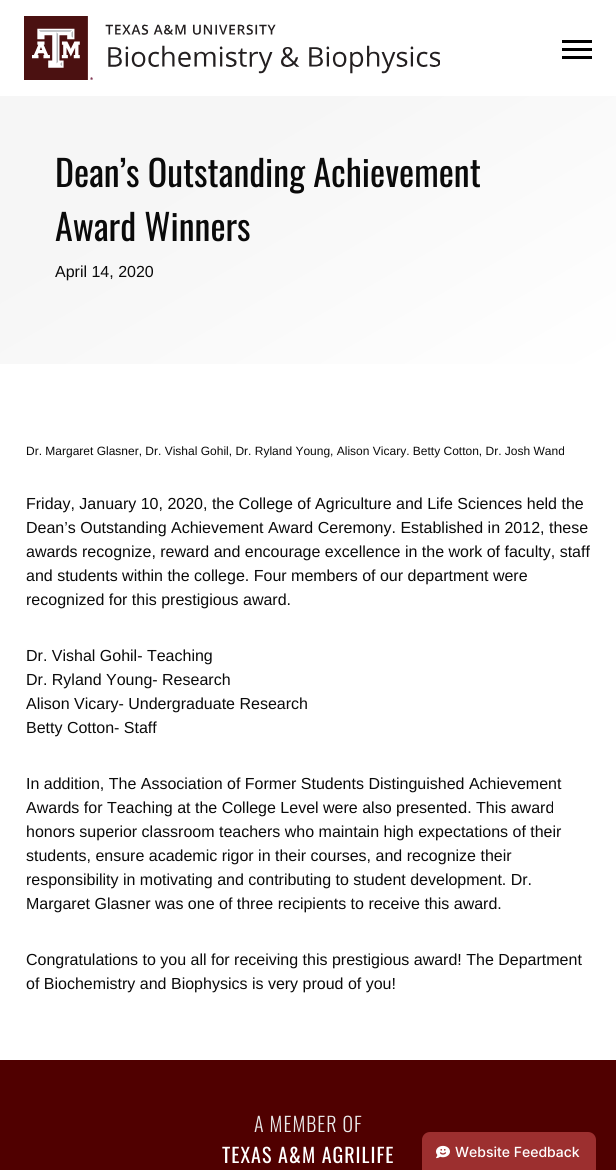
#include <cairo/cairo.h>
#include <math.h>
#include <stddef.h>

static cairo_t *cr;

static void use_color(int r, int g, int b) {
  cairo_set_source_rgb(cr, r / 255.0, g / 255.0, b / 255.0);
}

static void text(double x, double y, const char *s, const char *family, double size, int italic, int bold, int r, int g, int b) {
  cairo_select_font_face(cr, family, italic ? CAIRO_FONT_SLANT_ITALIC : CAIRO_FONT_SLANT_NORMAL,
    bold ? CAIRO_FONT_WEIGHT_BOLD : CAIRO_FONT_WEIGHT_NORMAL);
  cairo_set_font_size(cr, size);
  use_color(r, g, b);
  cairo_move_to(cr, x, y);
  cairo_show_text(cr, s);
}

static void spaced_text(double x, double y, const char *s, double letter, double word) {
  cairo_move_to(cr, x, y);
  while (*s) {
    char ch[5] = {0};
    int n = 0;
    do ch[n++] = *s++; while ((*s & 0xC0) == 0x80);
    cairo_show_text(cr, ch);
    cairo_rel_move_to(cr, letter + word * (*ch == ' '), 0);
  }
}

static void box(double x, double y, double w, double h, int r, int g, int b) {
  use_color(r, g, b);
  cairo_rectangle(cr, x, y, w, h);
  cairo_fill(cr);
}

static void picture(const char *path, double x, double y, double w, double h) {
  cairo_surface_t *image = cairo_image_surface_create_from_png(path);
  cairo_save(cr);
  cairo_set_source_surface(cr, image, x, y);
  cairo_rectangle(cr, x, y, w, h);
  cairo_fill(cr);
  cairo_restore(cr);
  cairo_surface_destroy(image);
}

static void draw(void) {
  cairo_pattern_t *gradient;
  use_color(255, 255, 255);
  cairo_paint(cr);
  picture("img_01.png", 24, 16, 416, 64);
  box(562, 56, 30, 3, 0, 0, 0);
  box(562, 48, 30, 3, 0, 0, 0);
  box(562, 40, 30, 3, 0, 0, 0);
  gradient = cairo_pattern_create_linear(173, -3.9, 443, 464);
  cairo_pattern_add_color_stop_rgba(gradient, 0.3, 0.965, 0.965, 0.965, 1);
  cairo_pattern_add_color_stop_rgba(gradient, 1, 1, 1, 1, 1);
  cairo_set_source(cr, gradient);
  cairo_pattern_destroy(gradient);
  cairo_rectangle(cr, 0, 96, 616, 268);
  cairo_fill(cr);
  box(0, 1060, 616, 110, 80, 0, 0);
  use_color(156, 47, 47);
  cairo_new_path(cr);
  cairo_move_to(cr, 430, 1132);
  cairo_line_to(cr, 588, 1132);
  cairo_curve_to(cr, 592.5, 1132, 596, 1135.5, 596, 1140);
  cairo_line_to(cr, 596, 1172);
  cairo_line_to(cr, 422, 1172);
  cairo_line_to(cr, 422, 1140);
  cairo_curve_to(cr, 422, 1135.5, 425.5, 1132, 430, 1132);
  cairo_close_path(cr);
  cairo_fill(cr);
  picture("img_02.png", 436, 1145, 14, 14);
  text(55, 187, "Dean’s Outstanding Achievement", "Oswald", 36, 0, 0, 10, 10, 10);
  text(55, 241, "Award Winners", "Oswald", 36, 0, 0, 10, 10, 10);
  text(55, 277, "April 14, 2020", "Liberation Sans", 16, 0, 0, 10, 10, 10);
  text(26, 455, "Dr. Margaret Glasner, Dr. Vishal Gohil, Dr. Ryland Young, Alison Vicary. Betty Cotton, Dr. Josh Wand", "Liberation Sans", 12, 0, 0, 10, 10, 10);
  text(26, 509, "Friday, January 10, 2020, the College of Agriculture and Life Sciences held the", "Liberation Sans", 16, 0, 0, 10, 10, 10);
  text(26, 533, "Dean’s Outstanding Achievement Award Ceremony. Established in 2012, these", "Liberation Sans", 16, 0, 0, 10, 10, 10);
  text(26, 557, "awards recognize, reward and encourage excellence in the work of faculty, staff", "Liberation Sans", 16, 0, 0, 10, 10, 10);
  text(26, 581, "and students within the college. Four members of our department were", "Liberation Sans", 16, 0, 0, 10, 10, 10);
  text(26, 605, "recognized for this prestigious award.", "Liberation Sans", 16, 0, 0, 10, 10, 10);
  text(26, 661, "Dr. Vishal Gohil- Teaching", "Liberation Sans", 16, 0, 0, 10, 10, 10);
  text(26, 685, "Dr. Ryland Young- Research", "Liberation Sans", 16, 0, 0, 10, 10, 10);
  text(26, 709, "Alison Vicary- Undergraduate Research", "Liberation Sans", 16, 0, 0, 10, 10, 10);
  text(26, 733, "Betty Cotton- Staff", "Liberation Sans", 16, 0, 0, 10, 10, 10);
  text(26, 789, "In addition, The Association of Former Students Distinguished Achievement", "Liberation Sans", 16, 0, 0, 10, 10, 10);
  text(26, 813, "Awards for Teaching at the College Level were also presented. This award", "Liberation Sans", 16, 0, 0, 10, 10, 10);
  text(26, 837, "honors superior classroom teachers who maintain high expectations of their", "Liberation Sans", 16, 0, 0, 10, 10, 10);
  text(26, 861, "students, ensure academic rigor in their courses, and recognize their", "Liberation Sans", 16, 0, 0, 10, 10, 10);
  text(26, 885, "responsibility in motivating and contributing to student development. Dr.", "Liberation Sans", 16, 0, 0, 10, 10, 10);
  text(26, 909, "Margaret Glasner was one of three recipients to receive this award.", "Liberation Sans", 16, 0, 0, 10, 10, 10);
  text(26, 965, "Congratulations to you all for receiving this prestigious award! The Department", "Liberation Sans", 16, 0, 0, 10, 10, 10);
  text(26, 989, "of Biochemistry and Biophysics is very proud of you!", "Liberation Sans", 16, 0, 0, 10, 10, 10);
  cairo_select_font_face(cr, "Oswald Light", CAIRO_FONT_SLANT_NORMAL, CAIRO_FONT_WEIGHT_NORMAL);
  cairo_set_font_size(cr, 20);
  use_color(234, 234, 234);
  spaced_text(254, 1132, "A MEMBER OF", 1, 0);
  cairo_select_font_face(cr, "Oswald", CAIRO_FONT_SLANT_NORMAL, CAIRO_FONT_WEIGHT_NORMAL);
  use_color(255, 255, 255);
  spaced_text(222, 1163, "TEXAS A&M AGRILIFE", 1, 0);
  text(455, 1157, "Website Feedback", "Inter Medium", 14, 0, 0, 255, 255, 255);
}

int main(void) {
  cairo_surface_t *surface = cairo_image_surface_create(CAIRO_FORMAT_RGB24, 616, 1170);
  cr = cairo_create(surface);
  cairo_font_options_t *options = cairo_font_options_create();
  cairo_font_options_set_hint_metrics(options, CAIRO_HINT_METRICS_OFF);
  cairo_font_options_set_hint_style(options, CAIRO_HINT_STYLE_NONE);
  cairo_set_font_options(cr, options);
  cairo_set_miter_limit(cr, 4);
  draw();
  cairo_surface_write_to_png(surface, "out.png");
  cairo_font_options_destroy(options);
  cairo_destroy(cr);
  cairo_surface_destroy(surface);
  return 0;
}
